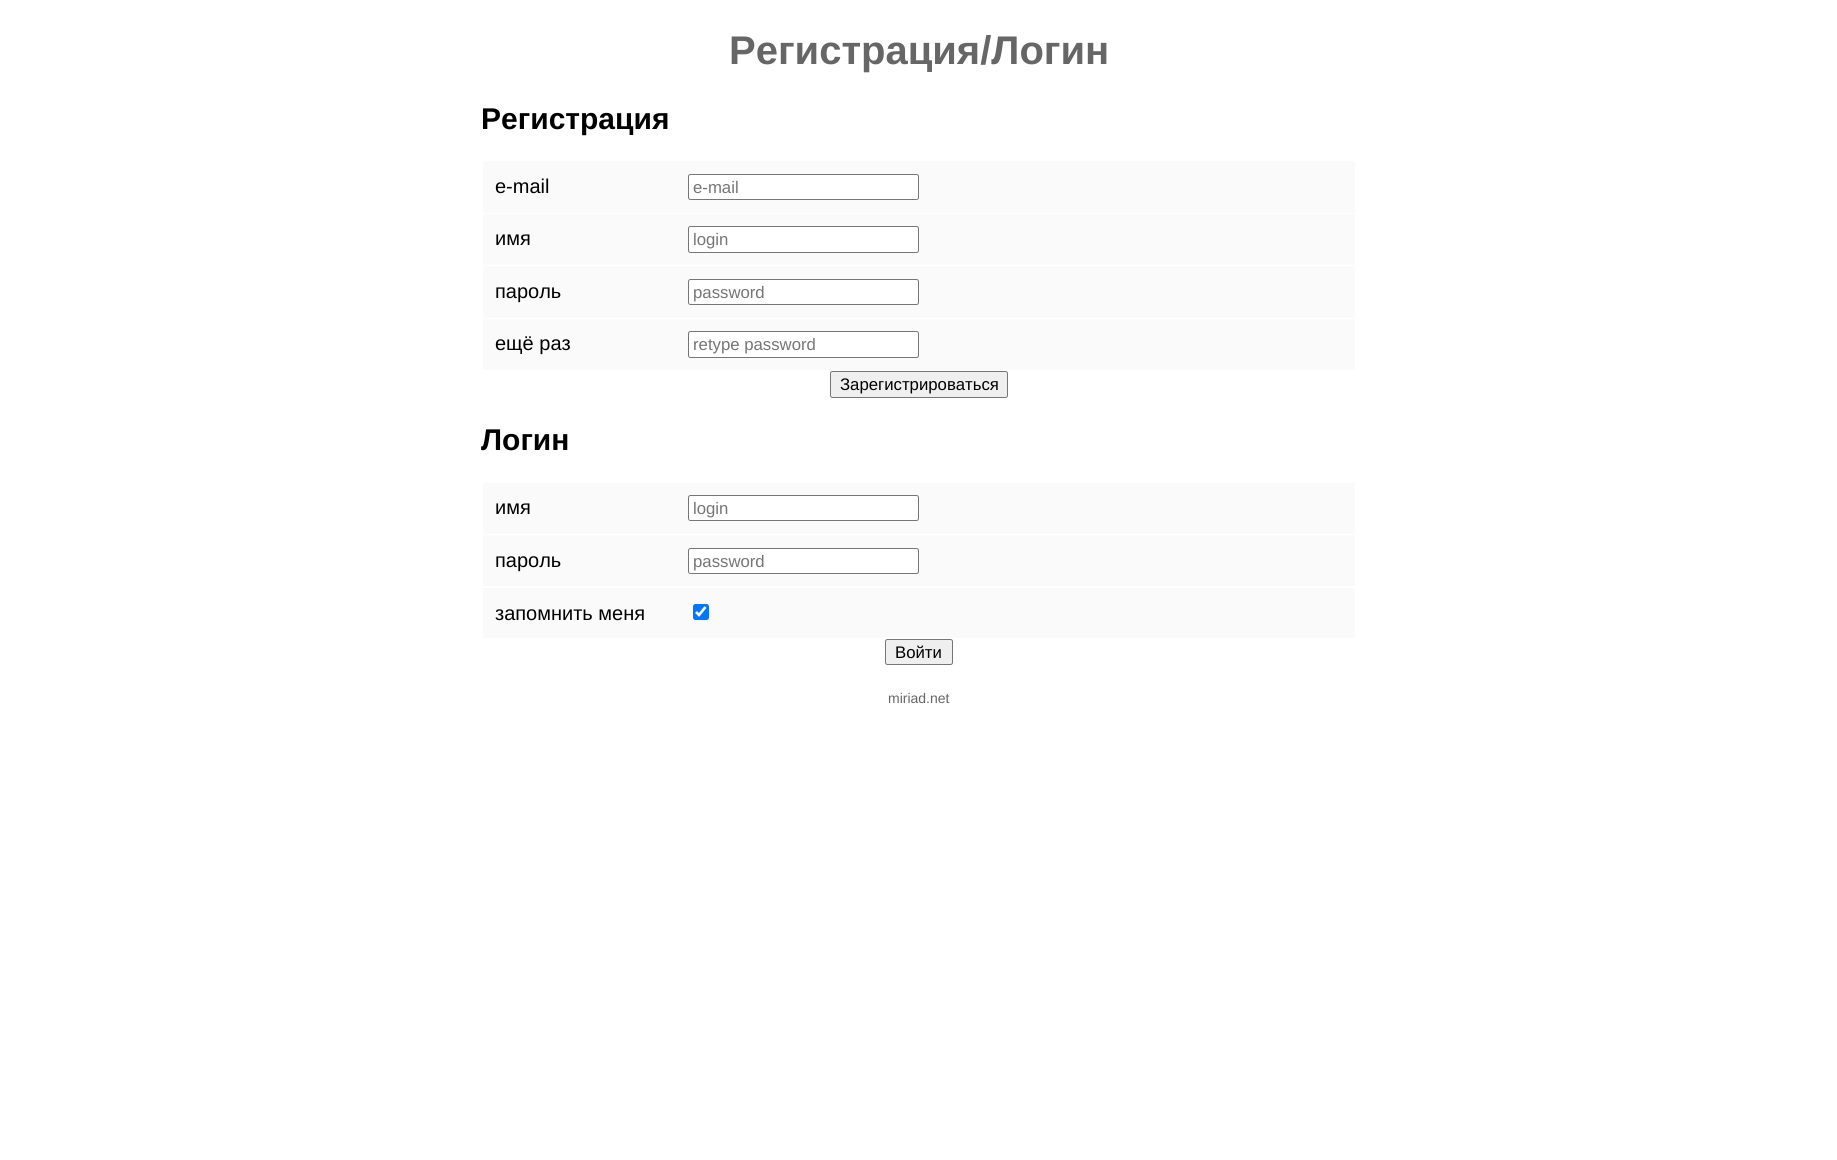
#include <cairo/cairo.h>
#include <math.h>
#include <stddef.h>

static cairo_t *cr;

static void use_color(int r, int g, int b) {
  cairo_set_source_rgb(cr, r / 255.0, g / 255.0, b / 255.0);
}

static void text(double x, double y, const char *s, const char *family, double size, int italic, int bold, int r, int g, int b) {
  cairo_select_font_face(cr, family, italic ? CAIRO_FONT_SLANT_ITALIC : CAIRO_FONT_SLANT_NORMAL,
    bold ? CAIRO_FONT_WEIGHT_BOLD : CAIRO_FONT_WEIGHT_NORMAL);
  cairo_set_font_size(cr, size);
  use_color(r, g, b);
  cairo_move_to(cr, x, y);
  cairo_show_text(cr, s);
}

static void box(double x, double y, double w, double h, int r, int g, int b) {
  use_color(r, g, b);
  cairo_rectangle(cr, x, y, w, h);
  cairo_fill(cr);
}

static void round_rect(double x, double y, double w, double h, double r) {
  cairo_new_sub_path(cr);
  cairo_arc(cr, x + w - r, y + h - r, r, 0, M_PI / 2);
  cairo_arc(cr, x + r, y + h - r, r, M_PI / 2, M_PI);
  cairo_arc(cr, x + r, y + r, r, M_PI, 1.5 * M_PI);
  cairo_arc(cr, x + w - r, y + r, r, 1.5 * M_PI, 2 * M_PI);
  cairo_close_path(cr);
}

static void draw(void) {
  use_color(255, 255, 255);
  cairo_paint(cr);
  box(483, 161, 872, 52, 250, 250, 250);
  use_color(255, 255, 255);
  round_rect(688.5, 174.5, 230, 25, 2);
  cairo_fill_preserve(cr);
  use_color(118, 118, 118);
  cairo_set_line_width(cr, 1);
  cairo_stroke(cr);
  box(483, 214, 872, 51, 250, 250, 250);
  use_color(255, 255, 255);
  round_rect(688.5, 226.5, 230, 26, 2);
  cairo_fill_preserve(cr);
  use_color(118, 118, 118);
  cairo_stroke(cr);
  box(483, 266, 872, 52, 250, 250, 250);
  use_color(255, 255, 255);
  round_rect(688.5, 279.5, 230, 25, 2);
  cairo_fill_preserve(cr);
  use_color(118, 118, 118);
  cairo_stroke(cr);
  box(483, 319, 872, 51, 250, 250, 250);
  use_color(255, 255, 255);
  round_rect(688.5, 331.5, 230, 26, 2);
  cairo_fill_preserve(cr);
  use_color(118, 118, 118);
  cairo_stroke(cr);
  use_color(239, 239, 239);
  round_rect(830.5, 371.5, 177, 26, 2);
  cairo_fill_preserve(cr);
  use_color(118, 118, 118);
  cairo_stroke(cr);
  box(483, 483, 872, 51, 250, 250, 250);
  use_color(255, 255, 255);
  round_rect(688.5, 495.5, 230, 25, 2);
  cairo_fill_preserve(cr);
  use_color(118, 118, 118);
  cairo_stroke(cr);
  box(483, 535, 872, 51, 250, 250, 250);
  use_color(255, 255, 255);
  round_rect(688.5, 548.5, 230, 25, 2);
  cairo_fill_preserve(cr);
  use_color(118, 118, 118);
  cairo_stroke(cr);
  box(483, 588, 872, 50, 250, 250, 250);
  use_color(0, 117, 255);
  round_rect(693, 604, 16, 16, 2.5);
  cairo_fill(cr);
  cairo_new_path(cr);
  cairo_move_to(cr, 696, 612);
  cairo_line_to(cr, 699, 615);
  cairo_line_to(cr, 705.5, 607);
  use_color(255, 255, 255);
  cairo_set_line_width(cr, 2.6);
  cairo_stroke(cr);
  use_color(239, 239, 239);
  round_rect(885.5, 639.5, 67, 25, 2);
  cairo_fill_preserve(cr);
  use_color(118, 118, 118);
  cairo_set_line_width(cr, 1);
  cairo_stroke(cr);
  text(729, 64, "Регистрация/Логин", "Liberation Sans", 40, 0, 1, 102, 102, 102);
  text(481, 129, "Регистрация", "Liberation Sans", 30, 0, 1, 0, 0, 0);
  text(495, 193, "e-mail", "Liberation Sans", 20, 0, 0, 0, 0, 0);
  text(693, 193, "e-mail", "Liberation Sans", 16.75, 0, 0, 117, 117, 117);
  text(495, 245, "имя", "Liberation Sans", 20, 0, 0, 0, 0, 0);
  text(693, 245, "login", "Liberation Sans", 16.75, 0, 0, 117, 117, 117);
  text(495, 298, "пароль", "Liberation Sans", 20, 0, 0, 0, 0, 0);
  text(693, 298, "password", "Liberation Sans", 16.75, 0, 0, 117, 117, 117);
  text(495, 350, "ещё раз", "Liberation Sans", 20, 0, 0, 0, 0, 0);
  text(693, 350, "retype password", "Liberation Sans", 16.75, 0, 0, 117, 117, 117);
  text(840, 390, "Зарегистрироваться", "Liberation Sans", 16.75, 0, 0, 0, 0, 0);
  text(481, 450, "Логин", "Liberation Sans", 30, 0, 1, 0, 0, 0);
  text(495, 514, "имя", "Liberation Sans", 20, 0, 0, 0, 0, 0);
  text(693, 514, "login", "Liberation Sans", 16.75, 0, 0, 117, 117, 117);
  text(495, 567, "пароль", "Liberation Sans", 20, 0, 0, 0, 0, 0);
  text(693, 567, "password", "Liberation Sans", 16.75, 0, 0, 117, 117, 117);
  text(495, 620, "запомнить меня", "Liberation Sans", 20, 0, 0, 0, 0, 0);
  text(895, 658, "Войти", "Liberation Sans", 16.75, 0, 0, 0, 0, 0);
  text(888, 703, "miriad.net", "Liberation Sans", 14, 0, 0, 102, 102, 102);
}

int main(void) {
  cairo_surface_t *surface = cairo_image_surface_create(CAIRO_FORMAT_RGB24, 1837, 1160);
  cr = cairo_create(surface);
  cairo_font_options_t *options = cairo_font_options_create();
  cairo_font_options_set_hint_metrics(options, CAIRO_HINT_METRICS_OFF);
  cairo_font_options_set_hint_style(options, CAIRO_HINT_STYLE_NONE);
  cairo_set_font_options(cr, options);
  cairo_set_miter_limit(cr, 4);
  draw();
  cairo_surface_write_to_png(surface, "out.png");
  cairo_font_options_destroy(options);
  cairo_destroy(cr);
  cairo_surface_destroy(surface);
  return 0;
}
